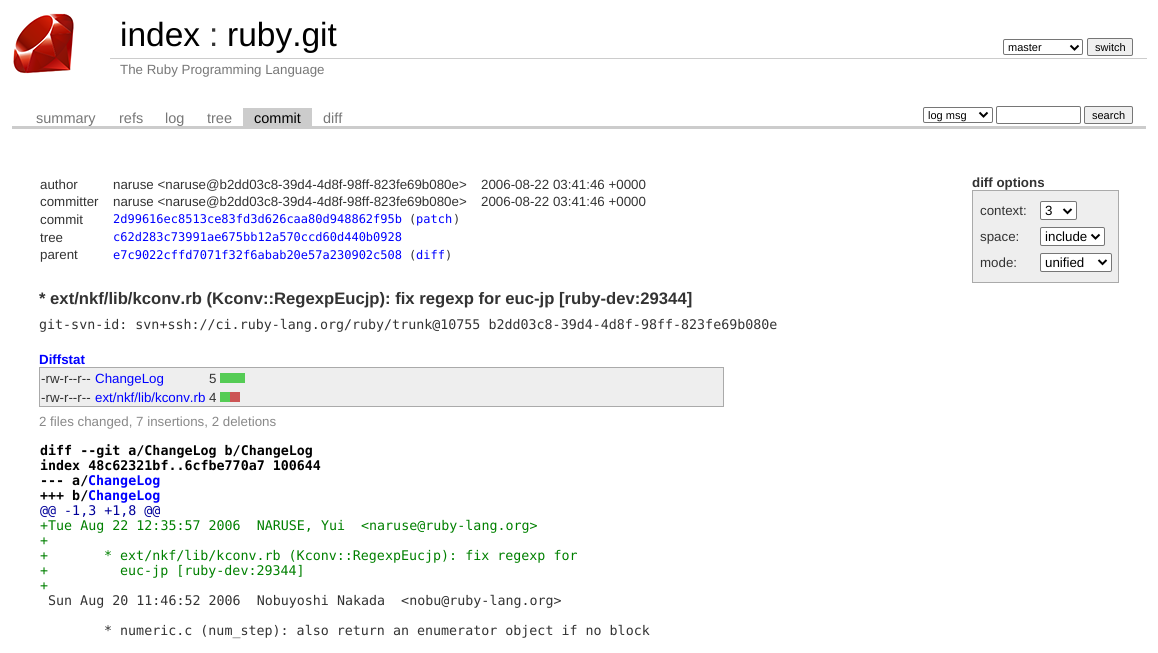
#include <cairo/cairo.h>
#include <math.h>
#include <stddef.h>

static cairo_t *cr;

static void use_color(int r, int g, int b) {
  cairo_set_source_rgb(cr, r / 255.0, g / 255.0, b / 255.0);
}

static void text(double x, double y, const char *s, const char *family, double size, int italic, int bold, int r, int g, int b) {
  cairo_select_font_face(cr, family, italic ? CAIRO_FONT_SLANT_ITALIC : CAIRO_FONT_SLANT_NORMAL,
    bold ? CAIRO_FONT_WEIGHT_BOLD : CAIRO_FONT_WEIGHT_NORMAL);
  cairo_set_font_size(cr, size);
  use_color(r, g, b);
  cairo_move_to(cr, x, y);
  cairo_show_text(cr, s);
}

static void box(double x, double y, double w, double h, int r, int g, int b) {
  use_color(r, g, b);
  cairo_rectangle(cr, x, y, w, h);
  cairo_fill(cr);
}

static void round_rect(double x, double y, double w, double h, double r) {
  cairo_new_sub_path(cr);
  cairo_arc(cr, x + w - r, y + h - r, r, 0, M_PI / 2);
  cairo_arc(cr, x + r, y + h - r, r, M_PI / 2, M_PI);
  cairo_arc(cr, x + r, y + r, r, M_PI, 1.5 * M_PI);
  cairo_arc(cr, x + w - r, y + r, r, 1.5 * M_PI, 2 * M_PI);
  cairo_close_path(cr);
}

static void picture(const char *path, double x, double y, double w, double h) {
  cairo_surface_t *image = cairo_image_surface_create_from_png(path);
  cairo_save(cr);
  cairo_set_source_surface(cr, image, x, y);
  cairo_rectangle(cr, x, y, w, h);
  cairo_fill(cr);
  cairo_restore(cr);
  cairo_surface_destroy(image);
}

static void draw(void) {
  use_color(255, 255, 255);
  cairo_paint(cr);
  picture("img_01.png", 13, 13, 61, 61);
  round_rect(1003.5, 39.5, 79, 15, 1.5);
  use_color(118, 118, 118);
  cairo_set_line_width(cr, 1);
  cairo_stroke(cr);
  cairo_new_path(cr);
  cairo_move_to(cr, 1070.5, 45.5);
  cairo_line_to(cr, 1074.5, 49.5);
  cairo_line_to(cr, 1078.5, 45.5);
  use_color(0, 0, 0);
  cairo_set_line_width(cr, 2);
  cairo_stroke(cr);
  use_color(239, 239, 239);
  round_rect(1087.5, 38.5, 45, 17, 1.5);
  cairo_fill_preserve(cr);
  use_color(118, 118, 118);
  cairo_set_line_width(cr, 1);
  cairo_stroke(cr);
  box(110, 58, 1037, 1, 204, 204, 204);
  box(12, 126, 1134, 3, 204, 204, 204);
  box(243, 108, 69, 18, 204, 204, 204);
  round_rect(923.5, 107.5, 69, 15, 1.5);
  use_color(118, 118, 118);
  cairo_stroke(cr);
  cairo_new_path(cr);
  cairo_move_to(cr, 979.5, 112.5);
  cairo_line_to(cr, 983.5, 116.5);
  cairo_line_to(cr, 987.5, 112.5);
  use_color(0, 0, 0);
  cairo_set_line_width(cr, 2);
  cairo_stroke(cr);
  round_rect(996.5, 106.5, 84, 17, 1.5);
  use_color(118, 118, 118);
  cairo_set_line_width(cr, 1);
  cairo_stroke(cr);
  use_color(239, 239, 239);
  round_rect(1084.5, 106.5, 48, 17, 1.5);
  cairo_fill_preserve(cr);
  use_color(118, 118, 118);
  cairo_stroke(cr);
  box(973, 191, 145, 91, 238, 238, 238);
  box(972, 190, 147, 1, 170, 170, 170);
  box(1118, 190, 1, 93, 170, 170, 170);
  box(972, 282, 147, 1, 170, 170, 170);
  box(972, 190, 1, 93, 170, 170, 170);
  use_color(255, 255, 255);
  round_rect(1040.5, 201.5, 36, 18, 1.5);
  cairo_fill_preserve(cr);
  use_color(118, 118, 118);
  cairo_stroke(cr);
  cairo_new_path(cr);
  cairo_move_to(cr, 1063.5, 209);
  cairo_line_to(cr, 1067.5, 213);
  cairo_line_to(cr, 1071.5, 209);
  use_color(0, 0, 0);
  cairo_set_line_width(cr, 2);
  cairo_stroke(cr);
  use_color(255, 255, 255);
  round_rect(1040.5, 227.5, 64, 18, 1.5);
  cairo_fill_preserve(cr);
  use_color(118, 118, 118);
  cairo_set_line_width(cr, 1);
  cairo_stroke(cr);
  cairo_new_path(cr);
  cairo_move_to(cr, 1091.5, 234.5);
  cairo_line_to(cr, 1095.5, 238.5);
  cairo_line_to(cr, 1099.5, 234.5);
  use_color(0, 0, 0);
  cairo_set_line_width(cr, 2);
  cairo_stroke(cr);
  use_color(255, 255, 255);
  round_rect(1040.5, 253.5, 71, 18, 1.5);
  cairo_fill_preserve(cr);
  use_color(118, 118, 118);
  cairo_set_line_width(cr, 1);
  cairo_stroke(cr);
  cairo_new_path(cr);
  cairo_move_to(cr, 1098.5, 260);
  cairo_line_to(cr, 1102.5, 264);
  cairo_line_to(cr, 1106.5, 260);
  use_color(0, 0, 0);
  cairo_set_line_width(cr, 2);
  cairo_stroke(cr);
  box(40, 368, 683, 38, 238, 238, 238);
  box(39, 367, 685, 1, 170, 170, 170);
  box(723, 367, 1, 40, 170, 170, 170);
  box(39, 406, 685, 1, 170, 170, 170);
  box(39, 367, 1, 40, 170, 170, 170);
  box(220, 373, 25, 10, 85, 204, 85);
  box(220, 392, 10, 10, 85, 204, 85);
  box(230, 392, 10, 10, 204, 85, 85);
  text(120, 46, "index", "Liberation Sans", 33.5, 0, 0, 0, 0, 0);
  text(209, 46, ":", "Liberation Sans", 33.5, 0, 0, 51, 51, 51);
  text(227, 46, "ruby.git", "Liberation Sans", 33.5, 0, 0, 0, 0, 0);
  text(1008, 51, "master", "Liberation Sans", 11, 0, 0, 0, 0, 0);
  text(1095, 51, "switch", "Liberation Sans", 11, 0, 0, 0, 0, 0);
  text(120, 74, "The Ruby Programming Language", "Liberation Sans", 13.33, 0, 0, 119, 119, 119);
  text(36, 123, "summary", "Liberation Sans", 14.5, 0, 0, 119, 119, 119);
  text(119, 123, "refs", "Liberation Sans", 14.5, 0, 0, 119, 119, 119);
  text(165, 123, "log", "Liberation Sans", 14.5, 0, 0, 119, 119, 119);
  text(207, 123, "tree", "Liberation Sans", 14.5, 0, 0, 119, 119, 119);
  text(254, 123, "commit", "Liberation Sans", 14.5, 0, 0, 0, 0, 0);
  text(323, 123, "diff", "Liberation Sans", 14.5, 0, 0, 119, 119, 119);
  text(928, 119, "log msg", "Liberation Sans", 11, 0, 0, 0, 0, 0);
  text(1092, 119, "search", "Liberation Sans", 11, 0, 0, 0, 0, 0);
  text(40, 189, "author", "Liberation Sans", 13.33, 0, 0, 51, 51, 51);
  text(113, 189, "naruse <naruse@b2dd03c8-39d4-4d8f-98ff-823fe69b080e>", "Liberation Sans", 13.33, 0, 0, 51, 51, 51);
  text(481, 189, "2006-08-22 03:41:46 +0000", "Liberation Sans", 13.33, 0, 0, 51, 51, 51);
  text(40, 206, "committer", "Liberation Sans", 13.33, 0, 0, 51, 51, 51);
  text(113, 206, "naruse <naruse@b2dd03c8-39d4-4d8f-98ff-823fe69b080e>", "Liberation Sans", 13.33, 0, 0, 51, 51, 51);
  text(481, 206, "2006-08-22 03:41:46 +0000", "Liberation Sans", 13.33, 0, 0, 51, 51, 51);
  text(40, 224, "commit", "Liberation Sans", 13.33, 0, 0, 51, 51, 51);
  text(113, 223, "2d99616ec8513ce83fd3d626caa80d948862f95b", "DejaVu Sans Mono", 12, 0, 0, 0, 0, 255);
  text(409, 223, "(", "DejaVu Sans Mono", 12, 0, 0, 51, 51, 51);
  text(416, 223, "patch", "DejaVu Sans Mono", 12, 0, 0, 0, 0, 255);
  text(453, 223, ")", "DejaVu Sans Mono", 12, 0, 0, 51, 51, 51);
  text(40, 242, "tree", "Liberation Sans", 13.33, 0, 0, 51, 51, 51);
  text(113, 241, "c62d283c73991ae675bb12a570ccd60d440b0928", "DejaVu Sans Mono", 12, 0, 0, 0, 0, 255);
  text(40, 259, "parent", "Liberation Sans", 13.33, 0, 0, 51, 51, 51);
  text(113, 259, "e7c9022cffd7071f32f6abab20e57a230902c508", "DejaVu Sans Mono", 12, 0, 0, 0, 0, 255);
  text(409, 259, "(", "DejaVu Sans Mono", 12, 0, 0, 51, 51, 51);
  text(416, 259, "diff", "DejaVu Sans Mono", 12, 0, 0, 0, 0, 255);
  text(445, 259, ")", "DejaVu Sans Mono", 12, 0, 0, 51, 51, 51);
  text(972, 187, "diff options", "Liberation Sans", 13.33, 0, 1, 51, 51, 51);
  text(980, 215, "context:", "Liberation Sans", 13.33, 0, 0, 51, 51, 51);
  text(1045, 215, "3", "Liberation Sans", 13.33, 0, 0, 0, 0, 0);
  text(980, 241, "space:", "Liberation Sans", 13.33, 0, 0, 51, 51, 51);
  text(1045, 241, "include", "Liberation Sans", 13.33, 0, 0, 0, 0, 0);
  text(980, 267, "mode:", "Liberation Sans", 13.33, 0, 0, 51, 51, 51);
  text(1045, 267, "unified", "Liberation Sans", 13.33, 0, 0, 0, 0, 0);
  text(39, 304, "* ext/nkf/lib/kconv.rb (Kconv::RegexpEucjp): fix regexp for euc-jp [ruby-dev:29344]", "Liberation Sans", 16.65, 0, 1, 51, 51, 51);
  text(39, 329, "git-svn-id: svn+ssh://ci.ruby-lang.org/ruby/trunk@10755 b2dd03c8-39d4-4d8f-98ff-823fe69b080e", "DejaVu Sans Mono", 13.33, 0, 0, 51, 51, 51);
  text(39, 364, "Diffstat", "Liberation Sans", 13.33, 0, 1, 0, 0, 255);
  text(41, 383, "-rw-r--r--", "Liberation Sans", 13.33, 0, 0, 51, 51, 51);
  text(95, 383, "ChangeLog", "Liberation Sans", 13.33, 0, 0, 0, 0, 255);
  text(209, 383, "5", "Liberation Sans", 13.33, 0, 0, 51, 51, 51);
  text(41, 402, "-rw-r--r--", "Liberation Sans", 13.33, 0, 0, 51, 51, 51);
  text(95, 402, "ext/nkf/lib/kconv.rb", "Liberation Sans", 13.33, 0, 0, 0, 0, 255);
  text(209, 402, "4", "Liberation Sans", 13.33, 0, 0, 51, 51, 51);
  text(39, 426, "2 files changed, 7 insertions, 2 deletions", "Liberation Sans", 13.33, 0, 0, 136, 136, 136);
  text(40, 455, "diff --git a/ChangeLog b/ChangeLog", "DejaVu Sans Mono", 13.33, 0, 1, 0, 0, 0);
  text(40, 470, "index 48c62321bf..6cfbe770a7 100644", "DejaVu Sans Mono", 13.33, 0, 1, 0, 0, 0);
  text(40, 485, "--- a/", "DejaVu Sans Mono", 13.33, 0, 1, 0, 0, 0);
  text(88, 485, "ChangeLog", "DejaVu Sans Mono", 13.33, 0, 1, 0, 0, 255);
  text(40, 500, "+++ b/", "DejaVu Sans Mono", 13.33, 0, 1, 0, 0, 0);
  text(88, 500, "ChangeLog", "DejaVu Sans Mono", 13.33, 0, 1, 0, 0, 255);
  text(40, 515, "@@ -1,3 +1,8 @@", "DejaVu Sans Mono", 13.33, 0, 0, 0, 0, 153);
  text(40, 530, "+Tue Aug 22 12:35:57 2006  NARUSE, Yui  <naruse@ruby-lang.org>", "DejaVu Sans Mono", 13.33, 0, 0, 0, 128, 0);
  text(40, 545, "+", "DejaVu Sans Mono", 13.33, 0, 0, 0, 128, 0);
  text(40, 560, "+", "DejaVu Sans Mono", 13.33, 0, 0, 0, 128, 0);
  text(104, 560, "* ext/nkf/lib/kconv.rb (Kconv::RegexpEucjp): fix regexp for", "DejaVu Sans Mono", 13.33, 0, 0, 0, 128, 0);
  text(40, 575, "+", "DejaVu Sans Mono", 13.33, 0, 0, 0, 128, 0);
  text(120, 575, "euc-jp [ruby-dev:29344]", "DejaVu Sans Mono", 13.33, 0, 0, 0, 128, 0);
  text(40, 590, "+", "DejaVu Sans Mono", 13.33, 0, 0, 0, 128, 0);
  text(48, 605, "Sun Aug 20 11:46:52 2006  Nobuyoshi Nakada  <nobu@ruby-lang.org>", "DejaVu Sans Mono", 13.33, 0, 0, 51, 51, 51);
  text(104, 635, "* numeric.c (num_step): also return an enumerator object if no block", "DejaVu Sans Mono", 13.33, 0, 0, 51, 51, 51);
}

int main(void) {
  cairo_surface_t *surface = cairo_image_surface_create(CAIRO_FORMAT_RGB24, 1158, 653);
  cr = cairo_create(surface);
  cairo_font_options_t *options = cairo_font_options_create();
  cairo_font_options_set_hint_metrics(options, CAIRO_HINT_METRICS_OFF);
  cairo_font_options_set_hint_style(options, CAIRO_HINT_STYLE_NONE);
  cairo_set_font_options(cr, options);
  cairo_set_miter_limit(cr, 4);
  draw();
  cairo_surface_write_to_png(surface, "out.png");
  cairo_font_options_destroy(options);
  cairo_destroy(cr);
  cairo_surface_destroy(surface);
  return 0;
}
